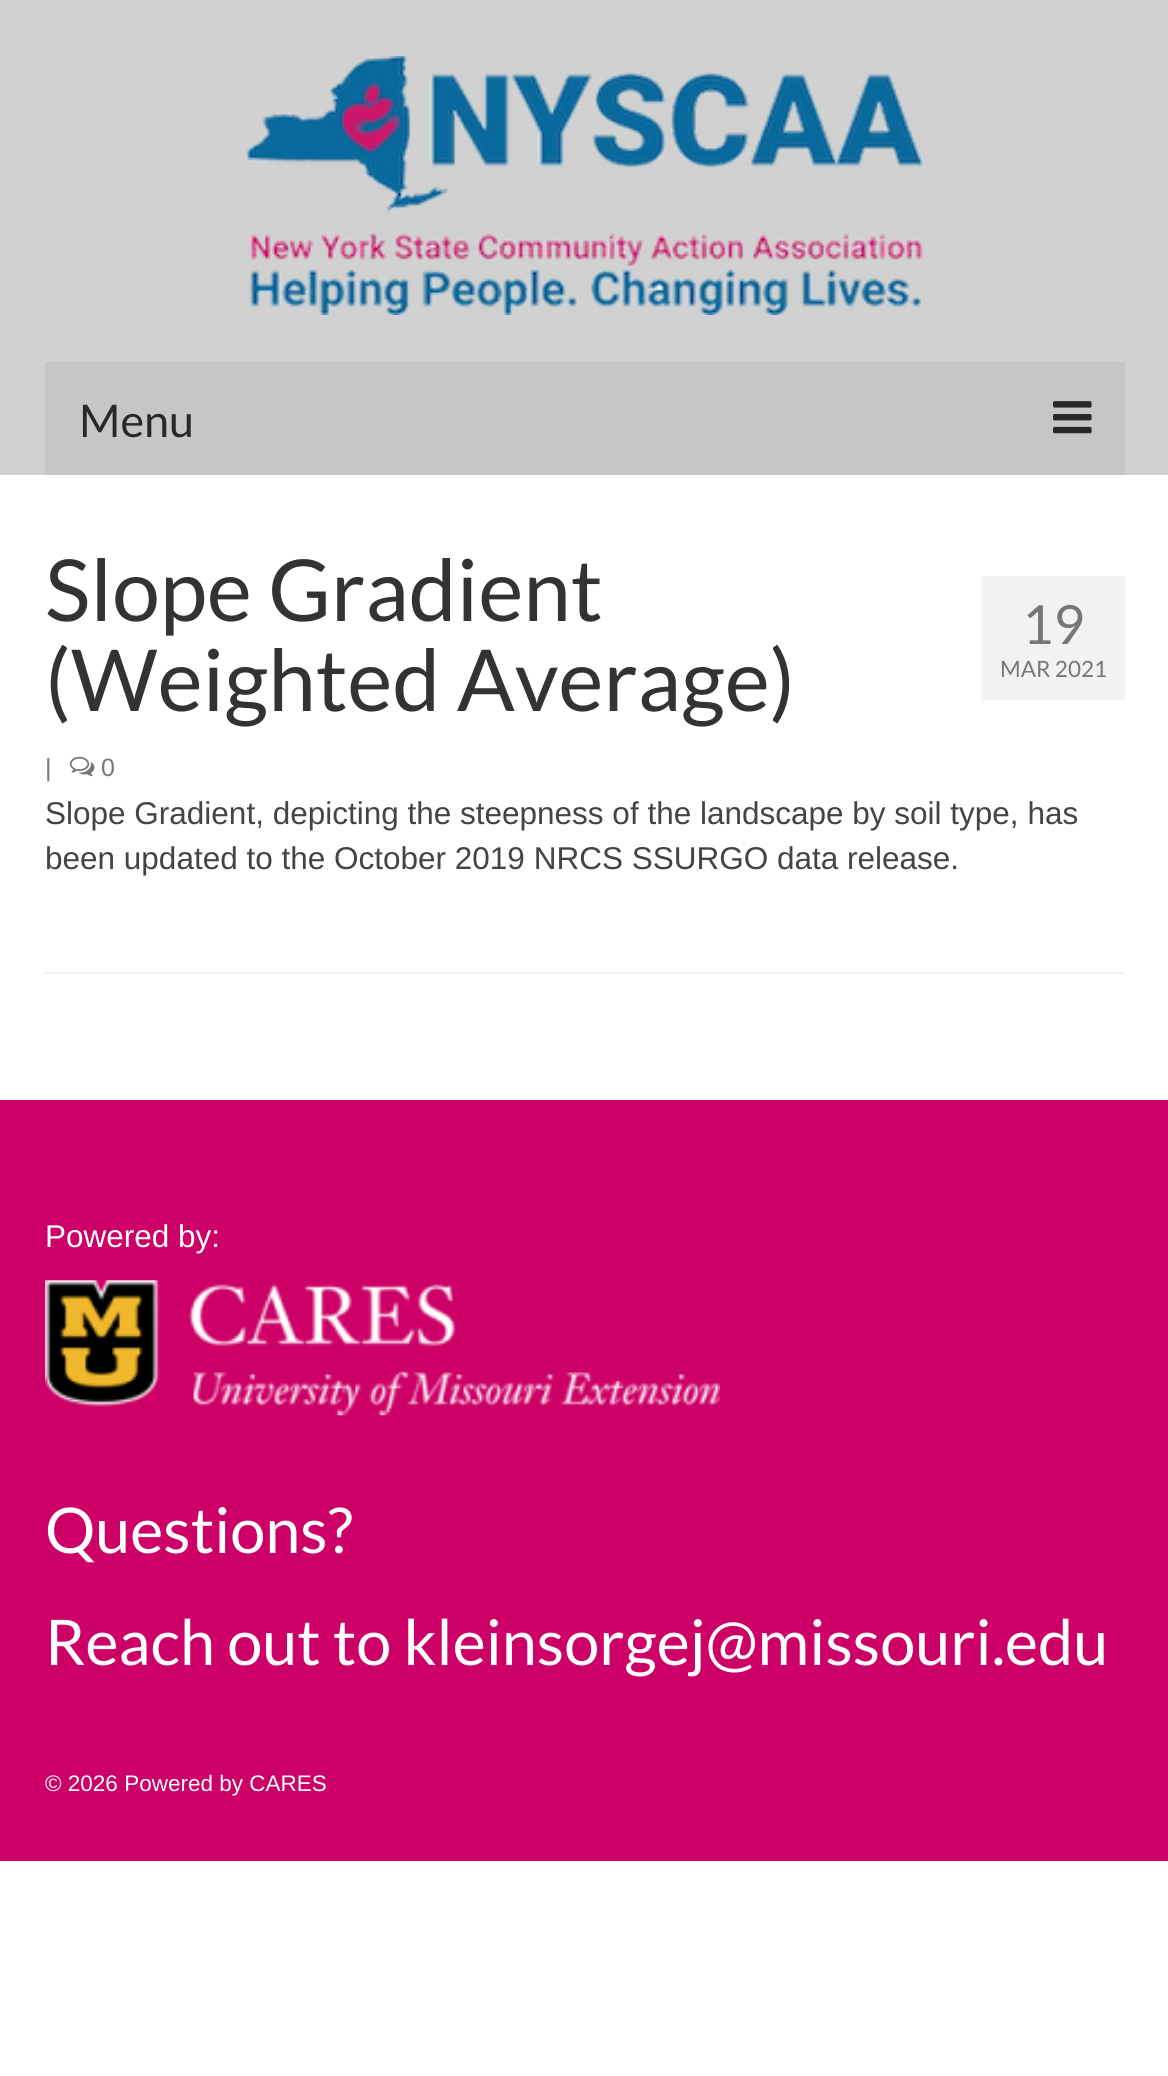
#include <cairo/cairo.h>
#include <math.h>
#include <stddef.h>

static cairo_t *cr;

static void use_color(int r, int g, int b) {
  cairo_set_source_rgb(cr, r / 255.0, g / 255.0, b / 255.0);
}

static void text(double x, double y, const char *s, const char *family, double size, int italic, int bold, int r, int g, int b) {
  cairo_select_font_face(cr, family, italic ? CAIRO_FONT_SLANT_ITALIC : CAIRO_FONT_SLANT_NORMAL,
    bold ? CAIRO_FONT_WEIGHT_BOLD : CAIRO_FONT_WEIGHT_NORMAL);
  cairo_set_font_size(cr, size);
  use_color(r, g, b);
  cairo_move_to(cr, x, y);
  cairo_show_text(cr, s);
}

static void box(double x, double y, double w, double h, int r, int g, int b) {
  use_color(r, g, b);
  cairo_rectangle(cr, x, y, w, h);
  cairo_fill(cr);
}

static void picture(const char *path, double x, double y, double w, double h) {
  cairo_surface_t *image = cairo_image_surface_create_from_png(path);
  cairo_save(cr);
  cairo_set_source_surface(cr, image, x, y);
  cairo_rectangle(cr, x, y, w, h);
  cairo_fill(cr);
  cairo_restore(cr);
  cairo_surface_destroy(image);
}

static void draw(void) {
  use_color(255, 255, 255);
  cairo_paint(cr);
  box(0, 0, 1168, 475, 209, 209, 209);
  picture("img_01.png", 247, 56, 676, 259);
  box(45, 362, 1080, 113, 198, 198, 198);
  picture("img_02.png", 1053, 401, 39, 33);
  picture("img_03.png", 69, 756, 26, 21);
  box(981, 576, 144, 124, 242, 242, 242);
  box(45, 972, 1080, 2, 242, 242, 242);
  box(0, 1100, 1168, 761, 204, 0, 102);
  picture("img_04.png", 45, 1280, 675, 136);
  text(79, 437, "Menu", "Lato", 45, 0, 0, 40, 40, 40);
  text(45, 621, "Slope Gradient", "Lato", 85.5, 0, 0, 51, 51, 51);
  text(45, 711, "(Weighted Average)", "Lato", 85.5, 0, 0, 51, 51, 51);
  text(45, 776, "|", "Liberation Sans", 25, 0, 0, 119, 119, 119);
  text(101, 776, "0", "Liberation Sans", 25, 0, 0, 119, 119, 119);
  text(1022, 644, "19", "Lato", 54, 0, 0, 119, 119, 119);
  text(1000, 677, "MAR 2021", "Lato", 22.5, 0, 0, 119, 119, 119);
  text(45, 824, "Slope Gradient, depicting the steepness of the landscape by soil type, has", "Liberation Sans", 31.5, 0, 0, 68, 68, 68);
  text(45, 869, "been updated to the October 2019 NRCS SSURGO data release.", "Liberation Sans", 31.5, 0, 0, 68, 68, 68);
  text(45, 1247, "Powered by:", "Liberation Sans", 31.5, 0, 0, 255, 255, 255);
  text(45, 1553, "Questions?", "Lato", 63, 0, 0, 255, 255, 255);
  text(45, 1665, "Reach out to kleinsorgej@missouri.edu", "Lato", 63, 0, 0, 255, 255, 255);
  text(45, 1791, "© 2026 Powered by CARES", "Liberation Sans", 22.5, 0, 0, 255, 255, 255);
}

int main(void) {
  cairo_surface_t *surface = cairo_image_surface_create(CAIRO_FORMAT_RGB24, 1168, 2076);
  cr = cairo_create(surface);
  cairo_font_options_t *options = cairo_font_options_create();
  cairo_font_options_set_hint_metrics(options, CAIRO_HINT_METRICS_OFF);
  cairo_font_options_set_hint_style(options, CAIRO_HINT_STYLE_NONE);
  cairo_set_font_options(cr, options);
  cairo_set_miter_limit(cr, 4);
  draw();
  cairo_surface_write_to_png(surface, "out.png");
  cairo_font_options_destroy(options);
  cairo_destroy(cr);
  cairo_surface_destroy(surface);
  return 0;
}
